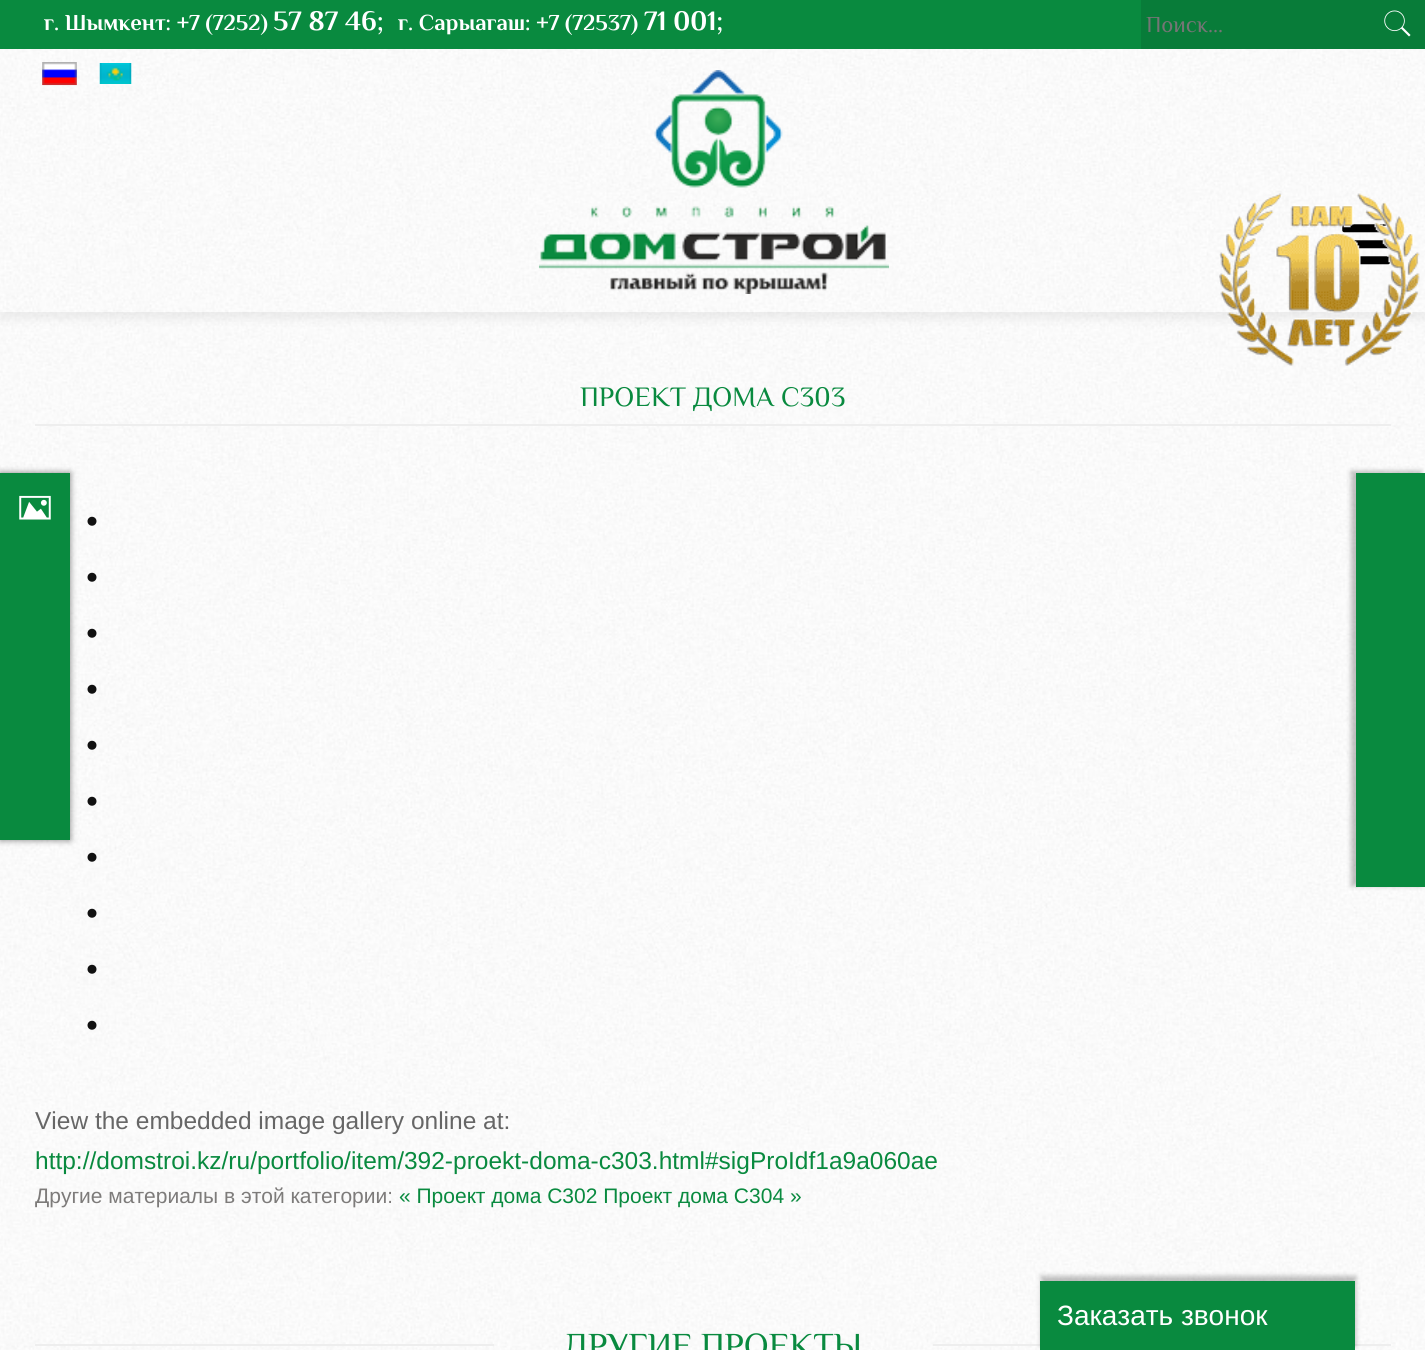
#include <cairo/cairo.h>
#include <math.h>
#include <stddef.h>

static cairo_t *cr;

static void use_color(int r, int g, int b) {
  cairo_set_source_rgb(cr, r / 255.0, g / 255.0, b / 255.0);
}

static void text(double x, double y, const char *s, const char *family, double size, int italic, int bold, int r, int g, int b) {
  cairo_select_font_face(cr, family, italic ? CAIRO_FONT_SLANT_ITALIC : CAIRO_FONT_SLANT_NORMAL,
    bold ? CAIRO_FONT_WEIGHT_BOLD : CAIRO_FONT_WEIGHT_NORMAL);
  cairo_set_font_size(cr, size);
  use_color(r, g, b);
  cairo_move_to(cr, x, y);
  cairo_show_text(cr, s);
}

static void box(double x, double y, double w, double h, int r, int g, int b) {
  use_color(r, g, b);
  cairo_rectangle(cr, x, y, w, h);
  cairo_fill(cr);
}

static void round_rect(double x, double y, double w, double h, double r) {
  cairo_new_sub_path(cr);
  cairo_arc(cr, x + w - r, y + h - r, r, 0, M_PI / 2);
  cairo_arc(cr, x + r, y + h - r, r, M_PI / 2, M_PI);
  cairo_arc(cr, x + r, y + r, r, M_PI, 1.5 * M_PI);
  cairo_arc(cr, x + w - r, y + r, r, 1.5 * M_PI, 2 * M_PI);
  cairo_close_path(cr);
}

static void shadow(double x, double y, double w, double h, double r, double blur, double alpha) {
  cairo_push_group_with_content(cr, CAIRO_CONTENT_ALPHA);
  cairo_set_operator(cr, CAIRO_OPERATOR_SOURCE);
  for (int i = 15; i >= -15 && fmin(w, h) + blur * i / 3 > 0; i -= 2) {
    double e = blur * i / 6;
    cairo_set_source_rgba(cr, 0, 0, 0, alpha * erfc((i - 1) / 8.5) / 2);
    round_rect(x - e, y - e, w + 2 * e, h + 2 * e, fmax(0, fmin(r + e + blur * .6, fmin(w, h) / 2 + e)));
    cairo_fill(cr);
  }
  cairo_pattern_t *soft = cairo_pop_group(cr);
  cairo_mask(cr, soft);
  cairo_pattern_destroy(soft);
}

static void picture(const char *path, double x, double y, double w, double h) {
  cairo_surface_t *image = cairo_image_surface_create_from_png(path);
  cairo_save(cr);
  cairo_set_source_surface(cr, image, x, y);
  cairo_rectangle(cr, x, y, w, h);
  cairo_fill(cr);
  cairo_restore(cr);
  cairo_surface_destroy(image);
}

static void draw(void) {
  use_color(255, 255, 255);
  cairo_paint(cr);
  picture("img_01.png", 0, 49, 1425, 1301);
  cairo_save(cr);
  cairo_set_fill_rule(cr, CAIRO_FILL_RULE_EVEN_ODD);
  cairo_new_path(cr);
  cairo_move_to(cr, 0, 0);
  cairo_line_to(cr, 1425, 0);
  cairo_line_to(cr, 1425, 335);
  cairo_line_to(cr, 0, 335);
  cairo_close_path(cr);
  cairo_move_to(cr, 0, 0);
  cairo_line_to(cr, 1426, 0);
  cairo_line_to(cr, 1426, 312);
  cairo_line_to(cr, 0, 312);
  cairo_close_path(cr);
  cairo_clip(cr);
  use_color(0, 0, 0);
  shadow(0, 9, 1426, 311, 0, 4.5, 0.06);
  cairo_restore(cr);
  picture("img_02.png", 539, 70, 350, 224);
  picture("img_03.png", 1342, 224, 49, 41);
  box(0, 0, 1141, 49, 9, 138, 63);
  picture("img_04.png", 42, 62, 35, 24);
  picture("img_05.png", 99, 63, 33, 21);
  picture("img_06.png", 1219, 193, 201, 173);
  box(1141, 0, 284, 49, 8, 124, 57);
  picture("img_07.png", 1384, 10, 27, 27);
  box(35, 424, 1356, 2, 238, 238, 238);
  picture("img_08.png", 87, 516, 10, 10);
  picture("img_09.png", 87, 572, 10, 10);
  picture("img_10.png", 87, 628, 10, 10);
  picture("img_11.png", 87, 684, 10, 10);
  picture("img_12.png", 87, 740, 10, 10);
  picture("img_13.png", 87, 796, 10, 10);
  picture("img_14.png", 87, 852, 10, 10);
  picture("img_15.png", 87, 908, 10, 10);
  picture("img_16.png", 87, 964, 10, 10);
  picture("img_17.png", 87, 1020, 10, 10);
  box(35, 1344, 1356, 2, 238, 238, 238);
  picture("img_18.png", 494, 1344, 439, 2);
  use_color(0, 0, 0);
  shadow(0, 473, 70, 367, 0, 3.5, 0.5);
  box(0, 473, 70, 367, 9, 138, 63);
  picture("img_19.png", 19, 495, 32, 25);
  use_color(0, 0, 0);
  shadow(1351, 471, 70, 415, 0, 2.5, 0.25);
  box(1356, 473, 69, 414, 9, 138, 63);
  use_color(0, 0, 0);
  shadow(1041, 1276, 315, 70, 0, 2.5, 0.25);
  box(1040, 1281, 315, 69, 9, 138, 63);
  text(44, 30, "г. Шымкент: +7 (7252)", "Philosopher", 22.75, 0, 1, 255, 255, 255);
  text(273, 30, "57 87 46;", "Philosopher", 28, 0, 1, 255, 255, 255);
  text(398, 30, "г. Сарыагаш: +7 (72537)", "Philosopher", 22.75, 0, 1, 255, 255, 255);
  text(644, 30, "71 001;", "Philosopher", 28, 0, 1, 255, 255, 255);
  text(1146, 32, "Поиск...", "Philosopher", 22.75, 0, 0, 117, 117, 117);
  text(580, 406, "ПРОЕКТ ДОМА C303", "Philosopher", 28, 0, 0, 9, 138, 63);
  text(35, 1129, "View the embedded image gallery online at:", "Liberation Sans", 24.5, 0, 0, 102, 102, 102);
  text(35, 1169, "http://domstroi.kz/ru/portfolio/item/392-proekt-doma-c303.html#sigProIdf1a9a060ae", "Liberation Sans", 24.5, 0, 0, 9, 138, 63);
  text(35, 1203, "Другие материалы в этой категории:", "Liberation Sans", 21, 0, 0, 125, 123, 122);
  text(399, 1203, "« Проект дома C302 Проект дома C304 »", "Liberation Sans", 21, 0, 0, 9, 138, 63);
  text(564, 1357, "ДРУГИЕ ПРОЕКТЫ", "Philosopher", 35, 0, 0, 9, 138, 63);
  text(1057, 1325, "Заказать звонок", "Liberation Sans", 28, 0, 0, 255, 255, 255);
}

int main(void) {
  cairo_surface_t *surface = cairo_image_surface_create(CAIRO_FORMAT_RGB24, 1425, 1350);
  cr = cairo_create(surface);
  cairo_font_options_t *options = cairo_font_options_create();
  cairo_font_options_set_hint_metrics(options, CAIRO_HINT_METRICS_OFF);
  cairo_font_options_set_hint_style(options, CAIRO_HINT_STYLE_NONE);
  cairo_set_font_options(cr, options);
  cairo_set_miter_limit(cr, 4);
  draw();
  cairo_surface_write_to_png(surface, "out.png");
  cairo_font_options_destroy(options);
  cairo_destroy(cr);
  cairo_surface_destroy(surface);
  return 0;
}
